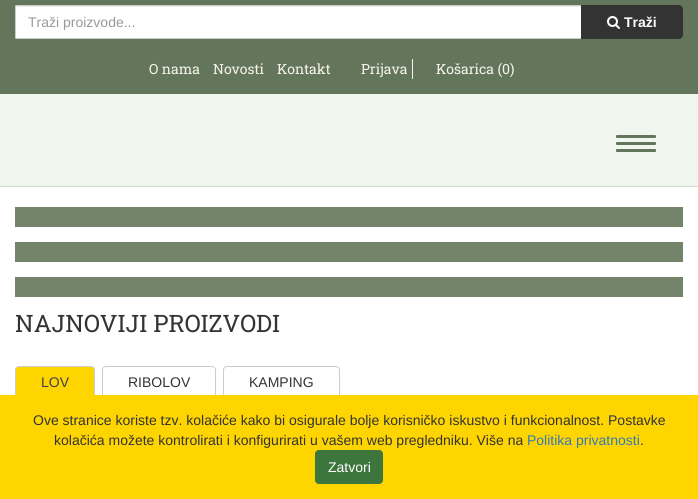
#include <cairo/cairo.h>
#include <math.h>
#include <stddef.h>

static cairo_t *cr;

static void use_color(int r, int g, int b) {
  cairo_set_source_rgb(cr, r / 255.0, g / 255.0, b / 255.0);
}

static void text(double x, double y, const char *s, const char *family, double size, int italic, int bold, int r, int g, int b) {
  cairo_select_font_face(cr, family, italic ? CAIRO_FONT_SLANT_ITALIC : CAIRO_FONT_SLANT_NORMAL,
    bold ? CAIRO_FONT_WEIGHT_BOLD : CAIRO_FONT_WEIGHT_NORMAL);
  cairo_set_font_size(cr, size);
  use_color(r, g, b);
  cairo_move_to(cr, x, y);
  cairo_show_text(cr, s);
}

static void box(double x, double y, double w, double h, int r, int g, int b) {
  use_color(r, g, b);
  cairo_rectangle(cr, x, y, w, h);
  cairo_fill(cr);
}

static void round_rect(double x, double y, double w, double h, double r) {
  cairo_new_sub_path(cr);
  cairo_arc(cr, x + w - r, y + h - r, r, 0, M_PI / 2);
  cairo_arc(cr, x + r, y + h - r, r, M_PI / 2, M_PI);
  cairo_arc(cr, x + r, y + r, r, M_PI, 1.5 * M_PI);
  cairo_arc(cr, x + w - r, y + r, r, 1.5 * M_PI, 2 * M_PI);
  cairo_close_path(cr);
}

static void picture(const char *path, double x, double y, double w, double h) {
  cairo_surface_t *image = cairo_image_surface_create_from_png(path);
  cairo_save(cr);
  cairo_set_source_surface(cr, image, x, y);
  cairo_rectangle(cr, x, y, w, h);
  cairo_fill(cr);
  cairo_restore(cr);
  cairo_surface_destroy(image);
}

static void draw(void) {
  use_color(255, 255, 255);
  cairo_paint(cr);
  box(0, 94, 698, 92, 240, 246, 237);
  box(0, 186, 698, 1, 211, 218, 208);
  box(0, 0, 698, 94, 99, 118, 91);
  use_color(255, 255, 255);
  round_rect(15, 5, 567, 34, 2);
  cairo_fill(cr);
  use_color(236, 236, 236);
  cairo_new_path(cr);
  cairo_move_to(cr, 17, 7);
  cairo_line_to(cr, 580, 7);
  cairo_line_to(cr, 581, 9);
  cairo_line_to(cr, 581, 6);
  cairo_line_to(cr, 580, 6);
  cairo_line_to(cr, 17, 6);
  cairo_curve_to(cr, 16, 6, 16, 8, 16, 9);
  cairo_close_path(cr);
  cairo_fill(cr);
  round_rect(15.5, 5.5, 566, 33, 1.5);
  use_color(204, 204, 204);
  cairo_set_line_width(cr, 1);
  cairo_stroke(cr);
  use_color(51, 51, 51);
  cairo_new_path(cr);
  cairo_move_to(cr, 581, 5);
  cairo_line_to(cr, 679, 5);
  cairo_curve_to(cr, 681, 5, 683, 7, 683, 9);
  cairo_line_to(cr, 683, 35);
  cairo_curve_to(cr, 683, 37, 681, 39, 679, 39);
  cairo_line_to(cr, 581, 39);
  cairo_close_path(cr);
  cairo_fill(cr);
  picture("img_01.png", 607, 16, 13, 13);
  box(412, 59, 1, 20, 247, 243, 236);
  use_color(99, 118, 91);
  round_rect(616, 135, 40, 3, 1);
  cairo_fill(cr);
  round_rect(616, 142, 40, 3, 1);
  cairo_fill(cr);
  round_rect(616, 149, 40, 3, 1);
  cairo_fill(cr);
  box(15, 207, 668, 20, 115, 132, 107);
  box(15, 242, 668, 20, 115, 132, 107);
  box(15, 277, 668, 20, 115, 132, 107);
  use_color(255, 213, 0);
  round_rect(15.5, 366.5, 79, 31, 3.5);
  cairo_fill_preserve(cr);
  use_color(204, 204, 204);
  cairo_stroke(cr);
  round_rect(102.5, 366.5, 113, 31, 3.5);
  cairo_stroke(cr);
  round_rect(223.5, 366.5, 116, 31, 3.5);
  cairo_stroke(cr);
  box(0, 395, 698, 104, 255, 213, 0);
  use_color(60, 118, 61);
  round_rect(315, 450, 68, 34, 4);
  cairo_fill(cr);
  text(28, 27, "Traži proizvode...", "Liberation Sans", 14, 0, 0, 153, 153, 153);
  text(624, 27, "Traži", "Liberation Sans", 14, 0, 1, 255, 255, 255);
  text(149, 74, "O nama", "Roboto Slab", 14, 0, 0, 247, 243, 236);
  text(213, 74, "Novosti", "Roboto Slab", 14, 0, 0, 247, 243, 236);
  text(277, 74, "Kontakt", "Roboto Slab", 14, 0, 0, 247, 243, 236);
  text(361, 74, "Prijava", "Roboto Slab", 14, 0, 0, 247, 243, 236);
  text(436, 74, "Košarica (0)", "Roboto Slab", 14, 0, 0, 247, 243, 236);
  text(15, 332, "NAJNOVIJI PROIZVODI", "Roboto Slab", 24, 0, 0, 51, 51, 51);
  text(41, 387, "LOV", "Liberation Sans", 14, 0, 0, 65, 64, 66);
  text(128, 387, "RIBOLOV", "Liberation Sans", 14, 0, 0, 51, 51, 51);
  text(249, 387, "KAMPING", "Liberation Sans", 14, 0, 0, 51, 51, 51);
  text(33, 425, "Ove stranice koriste tzv. kolačiće kako bi osigurale bolje korisničko iskustvo i funkcionalnost. Postavke", "Liberation Sans", 14, 0, 0, 51, 51, 51);
  text(54, 445, "kolačića možete kontrolirati i konfigurirati u vašem web pregledniku. Više na", "Liberation Sans", 14, 0, 0, 51, 51, 51);
  text(527, 445, "Politika privatnosti", "Liberation Sans", 14, 0, 0, 51, 122, 183);
  text(640, 445, ".", "Liberation Sans", 14, 0, 0, 51, 51, 51);
  text(328, 472, "Zatvori", "Liberation Sans", 14, 0, 0, 255, 255, 255);
}

int main(void) {
  cairo_surface_t *surface = cairo_image_surface_create(CAIRO_FORMAT_RGB24, 698, 499);
  cr = cairo_create(surface);
  cairo_font_options_t *options = cairo_font_options_create();
  cairo_font_options_set_hint_metrics(options, CAIRO_HINT_METRICS_OFF);
  cairo_font_options_set_hint_style(options, CAIRO_HINT_STYLE_NONE);
  cairo_set_font_options(cr, options);
  cairo_set_miter_limit(cr, 4);
  draw();
  cairo_surface_write_to_png(surface, "out.png");
  cairo_font_options_destroy(options);
  cairo_destroy(cr);
  cairo_surface_destroy(surface);
  return 0;
}
